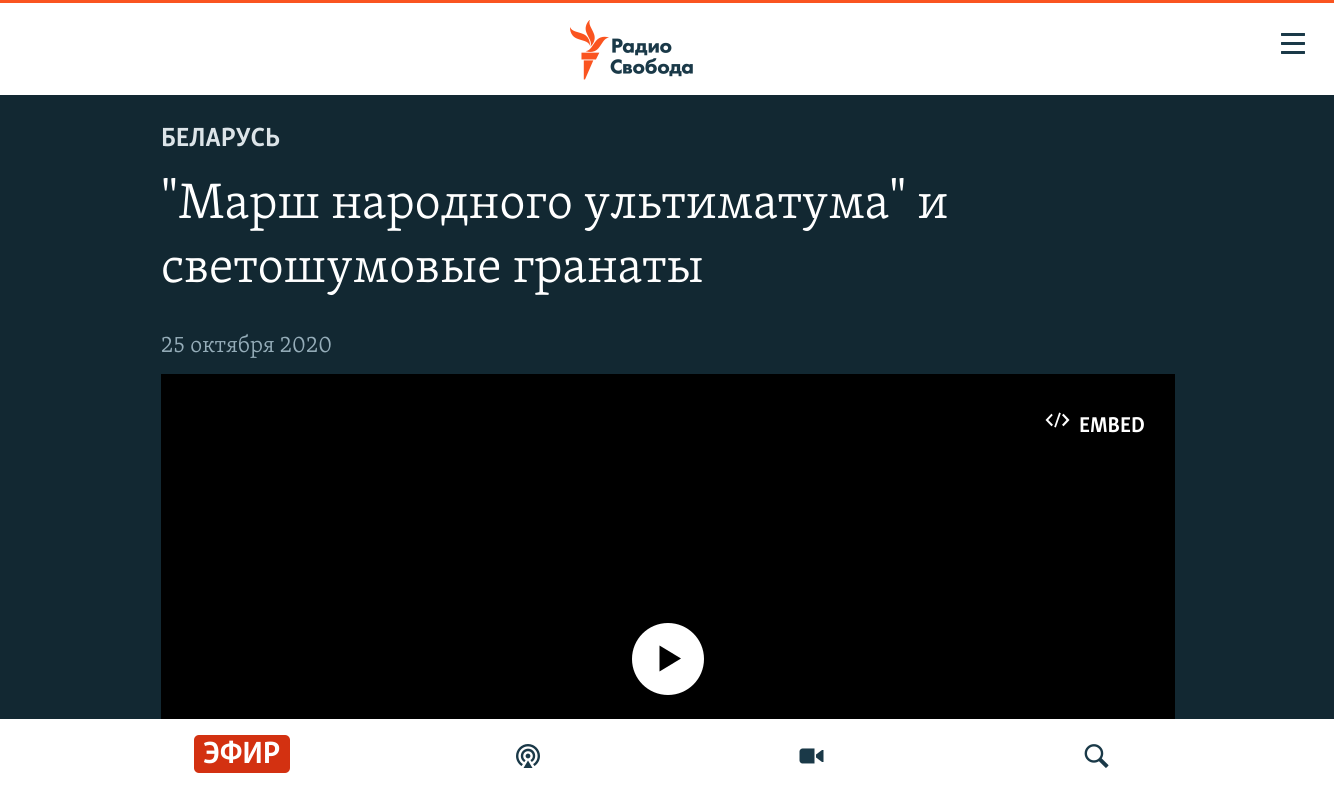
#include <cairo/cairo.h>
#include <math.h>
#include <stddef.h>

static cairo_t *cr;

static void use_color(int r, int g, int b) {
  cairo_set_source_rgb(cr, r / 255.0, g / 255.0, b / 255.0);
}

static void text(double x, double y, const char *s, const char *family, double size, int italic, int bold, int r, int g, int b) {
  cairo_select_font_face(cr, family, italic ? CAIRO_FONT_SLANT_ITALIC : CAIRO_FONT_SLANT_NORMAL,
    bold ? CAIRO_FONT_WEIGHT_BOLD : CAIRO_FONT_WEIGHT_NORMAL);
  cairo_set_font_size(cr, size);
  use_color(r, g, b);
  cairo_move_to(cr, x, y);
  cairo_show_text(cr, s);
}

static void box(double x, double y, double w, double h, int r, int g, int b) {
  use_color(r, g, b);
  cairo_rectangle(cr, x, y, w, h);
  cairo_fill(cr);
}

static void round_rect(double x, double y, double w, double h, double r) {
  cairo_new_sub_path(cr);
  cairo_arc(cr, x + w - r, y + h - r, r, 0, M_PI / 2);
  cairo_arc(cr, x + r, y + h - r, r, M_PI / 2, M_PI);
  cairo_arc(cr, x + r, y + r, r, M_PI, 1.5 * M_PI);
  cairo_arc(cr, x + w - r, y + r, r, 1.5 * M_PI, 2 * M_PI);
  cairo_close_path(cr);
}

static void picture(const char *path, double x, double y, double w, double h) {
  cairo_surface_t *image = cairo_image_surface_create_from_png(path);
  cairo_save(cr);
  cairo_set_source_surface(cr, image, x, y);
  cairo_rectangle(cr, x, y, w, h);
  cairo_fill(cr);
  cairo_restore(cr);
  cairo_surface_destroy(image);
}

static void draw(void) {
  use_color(18, 40, 50);
  cairo_paint(cr);
  box(161, 374, 1014, 345, 0, 0, 0);
  picture("img_01.png", 1045, 412, 25, 16);
  use_color(255, 255, 255);
  cairo_arc(cr, 668, 659, 36, 0, 2 * M_PI);
  cairo_fill(cr);
  use_color(0, 0, 0);
  cairo_new_path(cr);
  cairo_move_to(cr, 659.5, 671.5);
  cairo_line_to(cr, 681, 658.5);
  cairo_line_to(cr, 659.5, 645.5);
  cairo_close_path(cr);
  cairo_fill(cr);
  box(0, 3, 1334, 92, 255, 255, 255);
  box(0, 0, 1334, 3, 250, 84, 32);
  picture("img_02.png", 570, 20, 123, 60);
  picture("img_03.png", 1281, 33, 24, 21);
  box(0, 719, 1334, 74, 255, 255, 255);
  use_color(211, 49, 17);
  round_rect(194, 735, 96, 38, 5);
  cairo_fill(cr);
  picture("img_04.png", 516, 744, 24, 24);
  picture("img_05.png", 799, 748, 25, 16);
  picture("img_06.png", 1084, 744, 25, 24);
  text(161, 146, "БЕЛАРУСЬ", "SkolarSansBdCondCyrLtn", 27, 0, 1, 220, 228, 232);
  text(161, 218, "\"Марш народного ультиматума\" и", "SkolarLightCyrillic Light", 51.25, 0, 0, 255, 255, 255);
  text(161, 282, "светошумовые гранаты", "SkolarLightCyrillic Light", 51.25, 0, 0, 255, 255, 255);
  text(161, 352, "25 октября 2020", "SkolarLightCyrillic Light", 23.5, 0, 0, 149, 173, 185);
  text(1079, 432, "EMBED", "SkolarSansBdCondCyrLtn", 22, 0, 1, 255, 255, 255);
  text(203, 763, "ЭФИР", "SkolarSansBdCondCyrLtn", 31.5, 0, 1, 255, 255, 255);
}

int main(void) {
  cairo_surface_t *surface = cairo_image_surface_create(CAIRO_FORMAT_RGB24, 1334, 793);
  cr = cairo_create(surface);
  cairo_font_options_t *options = cairo_font_options_create();
  cairo_font_options_set_hint_metrics(options, CAIRO_HINT_METRICS_OFF);
  cairo_font_options_set_hint_style(options, CAIRO_HINT_STYLE_NONE);
  cairo_set_font_options(cr, options);
  cairo_set_miter_limit(cr, 4);
  draw();
  cairo_surface_write_to_png(surface, "out.png");
  cairo_font_options_destroy(options);
  cairo_destroy(cr);
  cairo_surface_destroy(surface);
  return 0;
}
